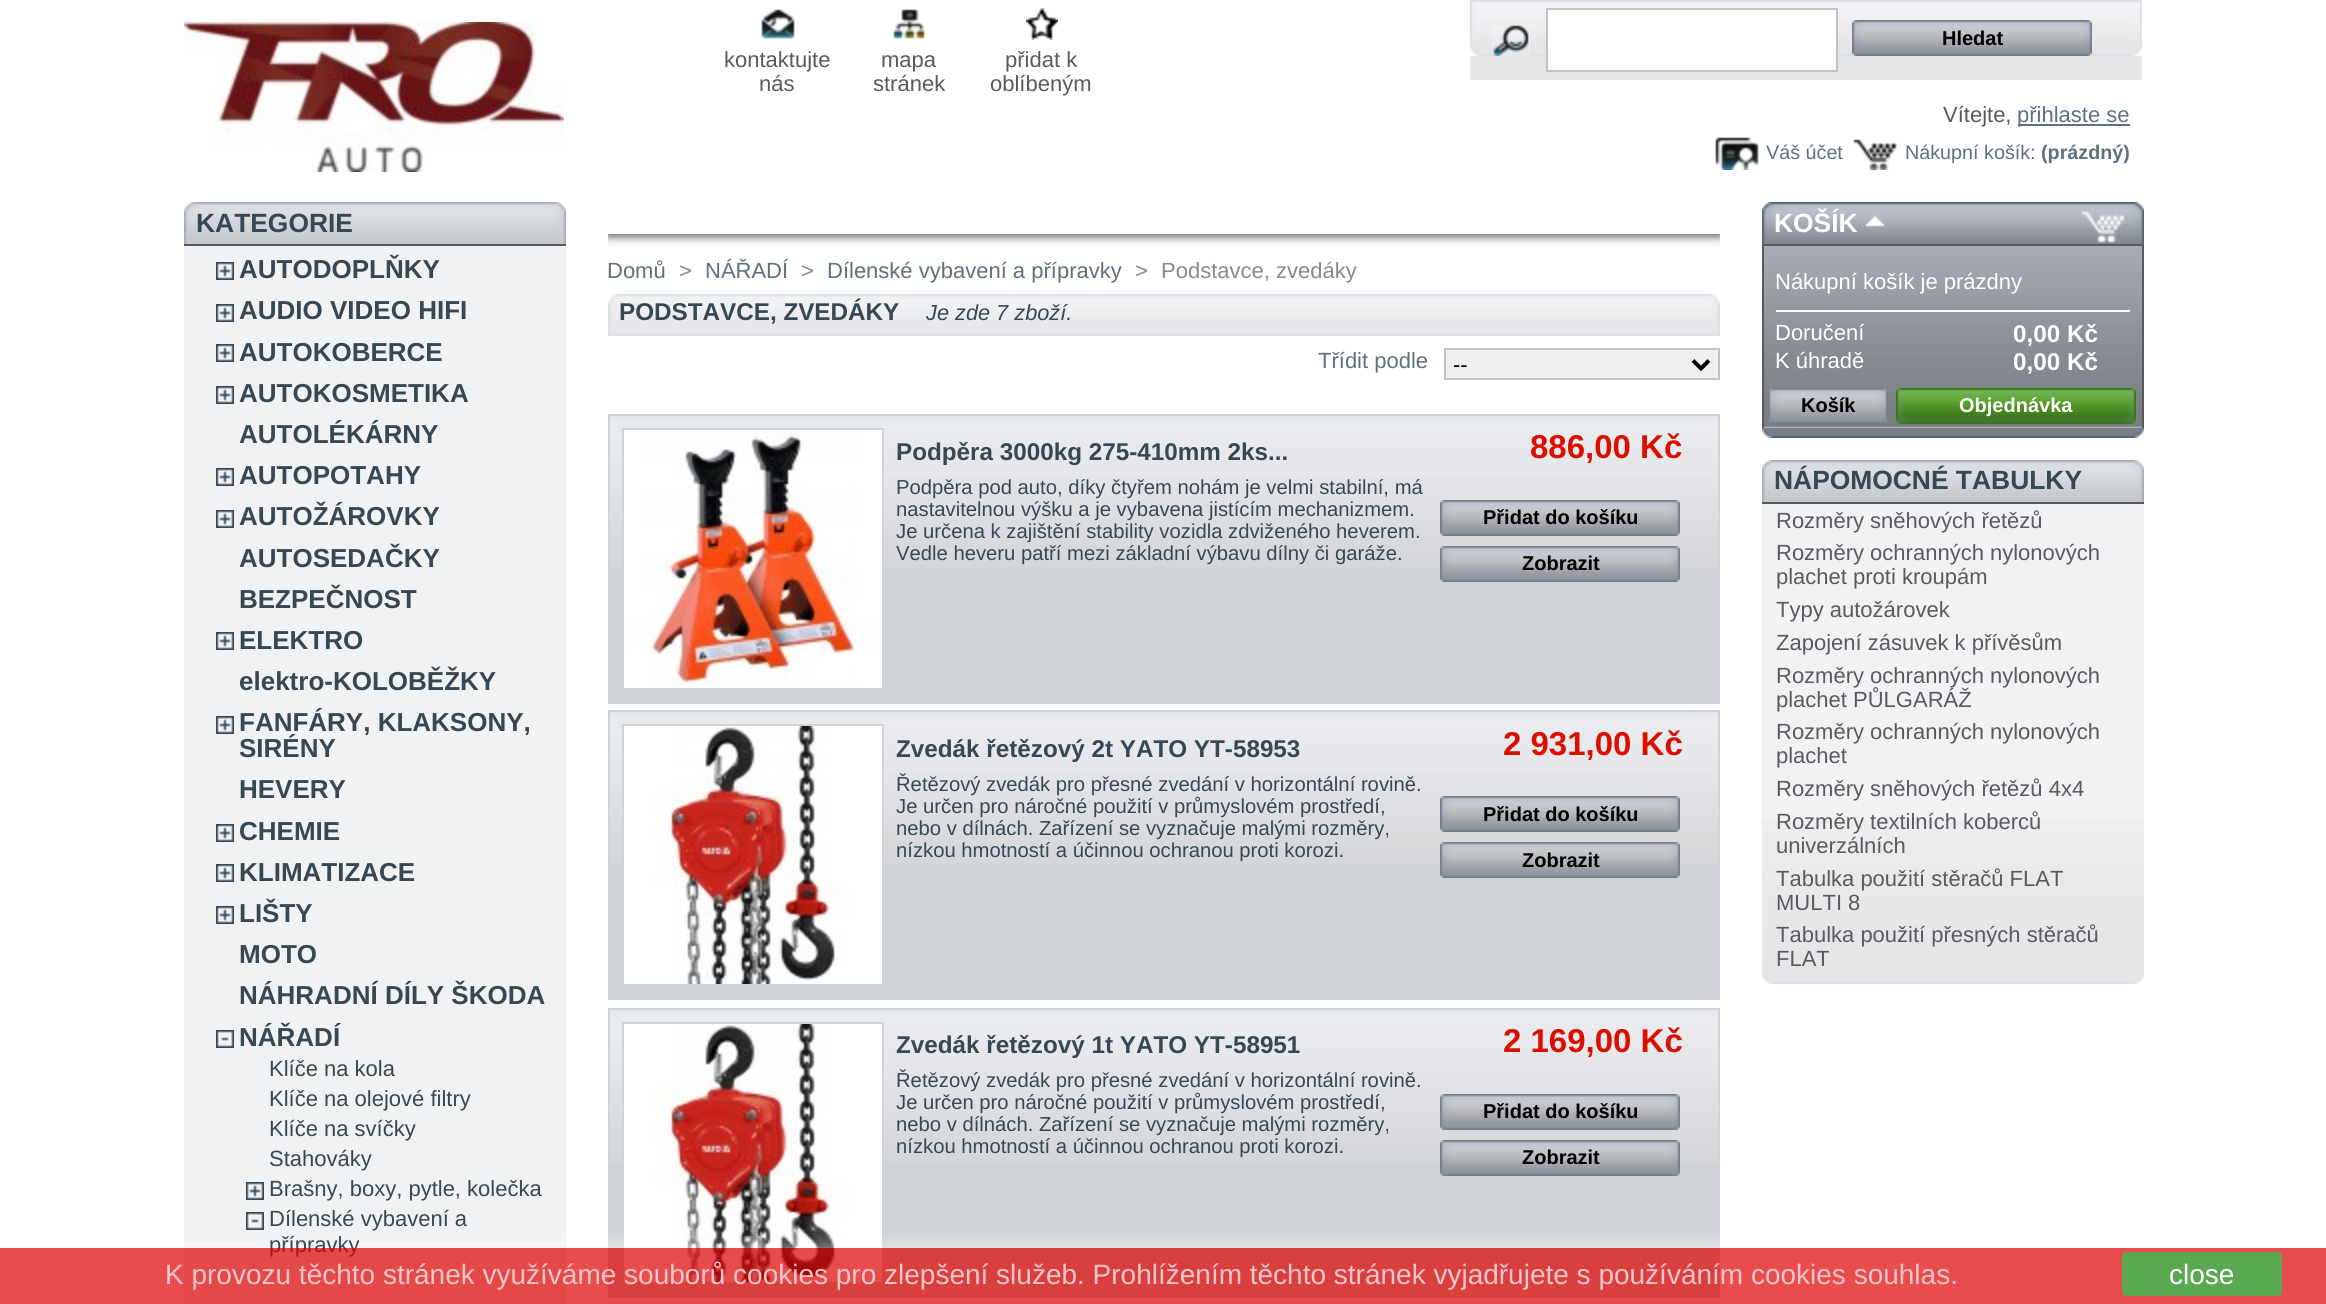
#include <cairo/cairo.h>
#include <math.h>
#include <stddef.h>

static cairo_t *cr;

static void use_color(int r, int g, int b) {
  cairo_set_source_rgb(cr, r / 255.0, g / 255.0, b / 255.0);
}

static void text(double x, double y, const char *s, const char *family, double size, int italic, int bold, int r, int g, int b) {
  cairo_select_font_face(cr, family, italic ? CAIRO_FONT_SLANT_ITALIC : CAIRO_FONT_SLANT_NORMAL,
    bold ? CAIRO_FONT_WEIGHT_BOLD : CAIRO_FONT_WEIGHT_NORMAL);
  cairo_set_font_size(cr, size);
  use_color(r, g, b);
  cairo_move_to(cr, x, y);
  cairo_show_text(cr, s);
}

static void box(double x, double y, double w, double h, int r, int g, int b) {
  use_color(r, g, b);
  cairo_rectangle(cr, x, y, w, h);
  cairo_fill(cr);
}

static void round_rect(double x, double y, double w, double h, double r) {
  cairo_new_sub_path(cr);
  cairo_arc(cr, x + w - r, y + h - r, r, 0, M_PI / 2);
  cairo_arc(cr, x + r, y + h - r, r, M_PI / 2, M_PI);
  cairo_arc(cr, x + r, y + r, r, M_PI, 1.5 * M_PI);
  cairo_arc(cr, x + w - r, y + r, r, 1.5 * M_PI, 2 * M_PI);
  cairo_close_path(cr);
}

static void shadow(double x, double y, double w, double h, double r, double blur, double alpha) {
  cairo_push_group_with_content(cr, CAIRO_CONTENT_ALPHA);
  cairo_set_operator(cr, CAIRO_OPERATOR_SOURCE);
  for (int i = 15; i >= -15 && fmin(w, h) + blur * i / 3 > 0; i -= 2) {
    double e = blur * i / 6;
    cairo_set_source_rgba(cr, 0, 0, 0, alpha * erfc((i - 1) / 8.5) / 2);
    round_rect(x - e, y - e, w + 2 * e, h + 2 * e, fmax(0, fmin(r + e + blur * .6, fmin(w, h) / 2 + e)));
    cairo_fill(cr);
  }
  cairo_pattern_t *soft = cairo_pop_group(cr);
  cairo_mask(cr, soft);
  cairo_pattern_destroy(soft);
}

static void picture(const char *path, double x, double y, double w, double h) {
  cairo_surface_t *image = cairo_image_surface_create_from_png(path);
  cairo_save(cr);
  cairo_set_source_surface(cr, image, x, y);
  cairo_rectangle(cr, x, y, w, h);
  cairo_fill(cr);
  cairo_restore(cr);
  cairo_surface_destroy(image);
}

static void draw(void) {
  use_color(255, 255, 255);
  cairo_paint(cr);
  picture("img_01.png", 184, 22, 380, 150);
  box(1470, 56, 672, 24, 229, 230, 231);
  picture("img_02.png", 1470, 0, 672, 56);
  picture("img_03.png", 1492, 25, 38, 31);
  use_color(255, 255, 255);
  cairo_rectangle(cr, 1547, 9, 290, 62);
  cairo_fill_preserve(cr);
  use_color(189, 194, 201);
  cairo_stroke(cr);
  box(1852, 29, 240, 27, 239, 239, 239);
  picture("img_04.png", 1852, 20, 240, 36);
  picture("img_05.png", 761, 9, 34, 30);
  picture("img_06.png", 893, 9, 32, 30);
  picture("img_07.png", 1026, 8, 32, 32);
  box(2018, 124, 112, 2, 93, 113, 126);
  picture("img_08.png", 1715, 137, 44, 33);
  picture("img_09.png", 1853, 139, 44, 31);
  picture("img_10.png", 184, 202, 382, 42);
  box(184, 244, 382, 2, 89, 90, 94);
  box(184, 246, 382, 1058, 241, 242, 244);
  picture("img_11.png", 216, 262, 18, 18);
  picture("img_11.png", 216, 304, 18, 18);
  picture("img_11.png", 216, 344, 18, 18);
  picture("img_11.png", 216, 386, 18, 18);
  picture("img_11.png", 216, 468, 18, 18);
  picture("img_11.png", 216, 510, 18, 18);
  picture("img_11.png", 216, 632, 18, 18);
  picture("img_11.png", 216, 716, 18, 18);
  picture("img_11.png", 216, 824, 18, 18);
  picture("img_11.png", 216, 864, 18, 18);
  picture("img_11.png", 216, 906, 18, 18);
  picture("img_12.png", 216, 1030, 18, 18);
  picture("img_11.png", 246, 1182, 18, 18);
  picture("img_12.png", 246, 1212, 18, 18);
  cairo_save(cr);
  cairo_rectangle(cr, 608, 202, 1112, 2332);
  cairo_clip(cr);
  cairo_rectangle(cr, 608, 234, 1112, 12);
  cairo_clip(cr);
  use_color(74, 74, 74);
  shadow(608, 204, 1112, 32, 0, 5, 1);
  cairo_restore(cr);
  picture("img_13.png", 608, 294, 1112, 42);
  use_color(239, 239, 239);
  cairo_rectangle(cr, 1445, 349, 274, 30);
  cairo_fill_preserve(cr);
  use_color(189, 194, 201);
  cairo_stroke(cr);
  cairo_new_path(cr);
  cairo_move_to(cr, 1693, 360.5);
  cairo_line_to(cr, 1701, 368.5);
  cairo_line_to(cr, 1709, 360.5);
  use_color(0, 0, 0);
  cairo_set_line_width(cr, 4);
  cairo_stroke(cr);
  box(610, 569, 1108, 133, 208, 211, 216);
  picture("img_14.png", 610, 416, 1108, 153);
  cairo_rectangle(cr, 609, 415, 1110, 288);
  cairo_set_line_width(cr, 2);
  cairo_stroke(cr);
  cairo_rectangle(cr, 623, 429, 260, 260);
  cairo_stroke(cr);
  picture("img_15.png", 624, 430, 258, 258);
  picture("img_16.png", 1440, 500, 240, 36);
  picture("img_17.png", 1440, 546, 240, 36);
  box(610, 865, 1108, 133, 208, 211, 216);
  picture("img_14.png", 610, 712, 1108, 153);
  cairo_rectangle(cr, 609, 711, 1110, 288);
  cairo_stroke(cr);
  cairo_rectangle(cr, 623, 725, 260, 260);
  cairo_stroke(cr);
  picture("img_18.png", 624, 726, 258, 258);
  picture("img_16.png", 1440, 796, 240, 36);
  picture("img_17.png", 1440, 842, 240, 36);
  box(610, 1163, 1108, 133, 208, 211, 216);
  picture("img_14.png", 610, 1010, 1108, 153);
  cairo_rectangle(cr, 609, 1009, 1110, 288);
  cairo_stroke(cr);
  cairo_rectangle(cr, 623, 1023, 260, 260);
  cairo_stroke(cr);
  picture("img_18.png", 624, 1024, 258, 258);
  picture("img_16.png", 1440, 1094, 240, 36);
  picture("img_17.png", 1440, 1140, 240, 36);
  picture("img_19.png", 1762, 428, 382, 10);
  picture("img_20.png", 1762, 202, 382, 42);
  box(1762, 244, 382, 2, 89, 90, 94);
  picture("img_21.png", 1866, 215, 18, 12);
  picture("img_22.png", 1764, 246, 378, 182);
  box(2142, 246, 2, 182, 89, 90, 94);
  box(1762, 246, 2, 182, 89, 90, 94);
  box(1776, 310, 354, 2, 255, 255, 255);
  picture("img_23.png", 1768, 388, 120, 36);
  picture("img_24.png", 1896, 388, 240, 36);
  picture("img_25.png", 1762, 974, 382, 10);
  picture("img_10.png", 1762, 460, 382, 42);
  box(1762, 502, 382, 2, 89, 90, 94);
  box(1762, 504, 382, 316, 241, 242, 244);
  picture("img_26.png", 1762, 820, 382, 154);
  cairo_save(cr);
  cairo_rectangle(cr, 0, 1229, 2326, 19);
  cairo_clip(cr);
  use_color(255, 255, 255);
  shadow(0, 1248, 2326, 56, 0, 10, 0.7);
  cairo_restore(cr);
  text(1942, 45, "Hledat", "Liberation Sans", 20, 0, 1, 0, 0, 0);
  text(724, 67, "kontaktujte", "Liberation Sans", 22, 0, 0, 89, 90, 94);
  text(759, 91, "nás", "Liberation Sans", 22, 0, 0, 89, 90, 94);
  text(881, 67, "mapa", "Liberation Sans", 22, 0, 0, 89, 90, 94);
  text(873, 91, "stránek", "Liberation Sans", 22, 0, 0, 89, 90, 94);
  text(1005, 67, "přidat k", "Liberation Sans", 22, 0, 0, 89, 90, 94);
  text(990, 91, "oblíbeným", "Liberation Sans", 22, 0, 0, 89, 90, 94);
  text(1943, 122, "Vítejte,", "Liberation Sans", 22, 0, 0, 89, 90, 94);
  text(2017, 122, "přihlaste se", "Liberation Sans", 22, 0, 0, 93, 113, 126);
  text(1766, 159, "Váš účet", "Liberation Sans", 19.75, 0, 0, 93, 113, 126);
  text(1905, 159, "Nákupní košík:", "Liberation Sans", 19.75, 0, 0, 93, 113, 126);
  text(2041, 159, "(prázdný)", "Liberation Sans", 19.75, 0, 1, 93, 113, 126);
  text(196, 232, "KATEGORIE", "Liberation Sans", 26.4, 0, 1, 55, 72, 83);
  text(239, 278, "AUTODOPLŇKY", "Liberation Sans", 26, 0, 1, 55, 72, 83);
  text(239, 319, "AUDIO VIDEO HIFI", "Liberation Sans", 26, 0, 1, 55, 72, 83);
  text(239, 361, "AUTOKOBERCE", "Liberation Sans", 26, 0, 1, 55, 72, 83);
  text(239, 402, "AUTOKOSMETIKA", "Liberation Sans", 26, 0, 1, 55, 72, 83);
  text(239, 443, "AUTOLÉKÁRNY", "Liberation Sans", 26, 0, 1, 55, 72, 83);
  text(239, 484, "AUTOPOTAHY", "Liberation Sans", 26, 0, 1, 55, 72, 83);
  text(239, 525, "AUTOŽÁROVKY", "Liberation Sans", 26, 0, 1, 55, 72, 83);
  text(239, 567, "AUTOSEDAČKY", "Liberation Sans", 26, 0, 1, 55, 72, 83);
  text(239, 608, "BEZPEČNOST", "Liberation Sans", 26, 0, 1, 55, 72, 83);
  text(239, 649, "ELEKTRO", "Liberation Sans", 26, 0, 1, 55, 72, 83);
  text(239, 690, "elektro-KOLOBĚŽKY", "Liberation Sans", 26, 0, 1, 55, 72, 83);
  text(239, 731, "FANFÁRY, KLAKSONY,", "Liberation Sans", 26, 0, 1, 55, 72, 83);
  text(239, 757, "SIRÉNY", "Liberation Sans", 26, 0, 1, 55, 72, 83);
  text(239, 798, "HEVERY", "Liberation Sans", 26, 0, 1, 55, 72, 83);
  text(239, 840, "CHEMIE", "Liberation Sans", 26, 0, 1, 55, 72, 83);
  text(239, 881, "KLIMATIZACE", "Liberation Sans", 26, 0, 1, 55, 72, 83);
  text(239, 922, "LIŠTY", "Liberation Sans", 26, 0, 1, 55, 72, 83);
  text(239, 963, "MOTO", "Liberation Sans", 26, 0, 1, 55, 72, 83);
  text(239, 1004, "NÁHRADNÍ DÍLY ŠKODA", "Liberation Sans", 26, 0, 1, 55, 72, 83);
  text(239, 1046, "NÁŘADÍ", "Liberation Sans", 26, 0, 1, 55, 72, 83);
  text(269, 1076, "Klíče na kola", "Liberation Sans", 22, 0, 0, 55, 72, 83);
  text(269, 1106, "Klíče na olejové filtry", "Liberation Sans", 22, 0, 0, 55, 72, 83);
  text(269, 1136, "Klíče na svíčky", "Liberation Sans", 22, 0, 0, 55, 72, 83);
  text(269, 1166, "Stahováky", "Liberation Sans", 22, 0, 0, 55, 72, 83);
  text(269, 1196, "Brašny, boxy, pytle, kolečka", "Liberation Sans", 22, 0, 0, 55, 72, 83);
  text(269, 1226, "Dílenské vybavení a", "Liberation Sans", 22, 0, 0, 55, 72, 83);
  text(269, 1252, "přípravky", "Liberation Sans", 22, 0, 0, 55, 72, 83);
  text(607, 278, "Domů", "Liberation Sans", 22, 0, 0, 93, 113, 126);
  text(679, 278, ">", "Liberation Sans", 22, 0, 0, 136, 136, 136);
  text(705, 278, "NÁŘADÍ", "Liberation Sans", 22, 0, 0, 93, 113, 126);
  text(801, 278, ">", "Liberation Sans", 22, 0, 0, 136, 136, 136);
  text(827, 278, "Dílenské vybavení a přípravky", "Liberation Sans", 22, 0, 0, 93, 113, 126);
  text(1135, 278, ">", "Liberation Sans", 22, 0, 0, 136, 136, 136);
  text(1161, 278, "Podstavce, zvedáky", "Liberation Sans", 22, 0, 0, 136, 136, 136);
  text(619, 320, "PODSTAVCE, ZVEDÁKY", "Liberation Sans", 24.25, 0, 1, 55, 72, 83);
  text(926, 320, "Je zde 7 zboží.", "Liberation Sans", 21.75, 1, 0, 55, 72, 83);
  text(1318, 368, "Třídit podle", "Liberation Sans", 22, 0, 0, 93, 113, 126);
  text(1453, 372, "--", "Liberation Sans", 22, 0, 0, 0, 0, 0);
  text(896, 460, "Podpěra 3000kg 275-410mm 2ks...", "Liberation Sans", 24.25, 0, 1, 55, 72, 83);
  text(896, 494, "Podpěra pod auto, díky čtyřem nohám je velmi stabilní, má", "Liberation Sans", 20.25, 0, 0, 55, 72, 83);
  text(896, 516, "nastavitelnou výšku a je vybavena jistícím mechanizmem.", "Liberation Sans", 20.25, 0, 0, 55, 72, 83);
  text(896, 538, "Je určena k zajištění stability vozidla zdviženého heverem.", "Liberation Sans", 20.25, 0, 0, 55, 72, 83);
  text(896, 560, "Vedle heveru patří mezi základní výbavu dílny či garáže.", "Liberation Sans", 20.25, 0, 0, 55, 72, 83);
  text(1530, 458, "886,00 Kč", "Liberation Sans", 33, 0, 1, 218, 15, 0);
  text(1483, 524, "Přidat do košíku", "Liberation Sans", 20, 0, 1, 0, 0, 0);
  text(1522, 570, "Zobrazit", "Liberation Sans", 20, 0, 1, 0, 0, 0);
  text(896, 757, "Zvedák řetězový 2t YATO YT-58953", "Liberation Sans", 24.25, 0, 1, 55, 72, 83);
  text(896, 791, "Řetězový zvedák pro přesné zvedání v horizontální rovině.", "Liberation Sans", 20.25, 0, 0, 55, 72, 83);
  text(896, 813, "Je určen pro náročné použití v průmyslovém prostředí,", "Liberation Sans", 20.25, 0, 0, 55, 72, 83);
  text(896, 835, "nebo v dílnách. Zařízení se vyznačuje malými rozměry,", "Liberation Sans", 20.25, 0, 0, 55, 72, 83);
  text(896, 857, "nízkou hmotností a účinnou ochranou proti korozi.", "Liberation Sans", 20.25, 0, 0, 55, 72, 83);
  text(1503, 755, "2 931,00 Kč", "Liberation Sans", 33, 0, 1, 218, 15, 0);
  text(1483, 821, "Přidat do košíku", "Liberation Sans", 20, 0, 1, 0, 0, 0);
  text(1522, 867, "Zobrazit", "Liberation Sans", 20, 0, 1, 0, 0, 0);
  text(896, 1053, "Zvedák řetězový 1t YATO YT-58951", "Liberation Sans", 24.25, 0, 1, 55, 72, 83);
  text(896, 1087, "Řetězový zvedák pro přesné zvedání v horizontální rovině.", "Liberation Sans", 20.25, 0, 0, 55, 72, 83);
  text(896, 1109, "Je určen pro náročné použití v průmyslovém prostředí,", "Liberation Sans", 20.25, 0, 0, 55, 72, 83);
  text(896, 1131, "nebo v dílnách. Zařízení se vyznačuje malými rozměry,", "Liberation Sans", 20.25, 0, 0, 55, 72, 83);
  text(896, 1153, "nízkou hmotností a účinnou ochranou proti korozi.", "Liberation Sans", 20.25, 0, 0, 55, 72, 83);
  text(1503, 1052, "2 169,00 Kč", "Liberation Sans", 33, 0, 1, 218, 15, 0);
  text(1483, 1118, "Přidat do košíku", "Liberation Sans", 20, 0, 1, 0, 0, 0);
  text(1522, 1164, "Zobrazit", "Liberation Sans", 20, 0, 1, 0, 0, 0);
  text(1774, 232, "KOŠÍK", "Liberation Sans", 26.4, 0, 1, 255, 255, 255);
  text(1775, 289, "Nákupní košík je prázdny", "Liberation Sans", 22, 0, 0, 255, 255, 255);
  text(1775, 340, "Doručení", "Liberation Sans", 22, 0, 0, 255, 255, 255);
  text(2013, 342, "0,00 Kč", "Liberation Sans", 24.25, 0, 1, 255, 255, 255);
  text(1775, 368, "K úhradě", "Liberation Sans", 22, 0, 0, 255, 255, 255);
  text(2013, 370, "0,00 Kč", "Liberation Sans", 24.25, 0, 1, 255, 255, 255);
  text(1801, 412, "Košík", "Liberation Sans", 20, 0, 1, 0, 0, 0);
  text(1959, 412, "Objednávka", "Liberation Sans", 20, 0, 1, 255, 255, 255);
  text(1774, 489, "NÁPOMOCNÉ TABULKY", "Liberation Sans", 26.4, 0, 1, 55, 72, 83);
  text(1776, 528, "Rozměry sněhových řetězů", "Liberation Sans", 22, 0, 0, 89, 90, 94);
  text(1776, 560, "Rozměry ochranných nylonových", "Liberation Sans", 22, 0, 0, 89, 90, 94);
  text(1776, 584, "plachet proti kroupám", "Liberation Sans", 22, 0, 0, 89, 90, 94);
  text(1776, 617, "Typy autožárovek", "Liberation Sans", 22, 0, 0, 89, 90, 94);
  text(1776, 650, "Zapojení zásuvek k přívěsům", "Liberation Sans", 22, 0, 0, 89, 90, 94);
  text(1776, 683, "Rozměry ochranných nylonových", "Liberation Sans", 22, 0, 0, 89, 90, 94);
  text(1776, 707, "plachet PŮLGARÁŽ", "Liberation Sans", 22, 0, 0, 89, 90, 94);
  text(1776, 739, "Rozměry ochranných nylonových", "Liberation Sans", 22, 0, 0, 89, 90, 94);
  text(1776, 763, "plachet", "Liberation Sans", 22, 0, 0, 89, 90, 94);
  text(1776, 796, "Rozměry sněhových řetězů 4x4", "Liberation Sans", 22, 0, 0, 89, 90, 94);
  text(1776, 829, "Rozměry textilních koberců", "Liberation Sans", 22, 0, 0, 89, 90, 94);
  text(1776, 853, "univerzálních", "Liberation Sans", 22, 0, 0, 89, 90, 94);
  text(1776, 886, "Tabulka použití stěračů FLAT", "Liberation Sans", 22, 0, 0, 89, 90, 94);
  text(1776, 910, "MULTI 8", "Liberation Sans", 22, 0, 0, 89, 90, 94);
  text(1776, 942, "Tabulka použití přesných stěračů", "Liberation Sans", 22, 0, 0, 89, 90, 94);
  text(1776, 966, "FLAT", "Liberation Sans", 22, 0, 0, 89, 90, 94);
  cairo_set_source_rgba(cr, 0.871, 0, 0, 0.7);
  cairo_rectangle(cr, 0, 1248, 2326, 56);
  cairo_fill(cr);
  text(165, 1284, "K provozu těchto stránek využíváme souborů cookies pro zlepšení služeb. Prohlížením těchto stránek vyjadřujete s používáním cookies souhlas.", "Liberation Sans", 28, 0, 0, 245, 198, 199);
  use_color(91, 168, 83);
  round_rect(2122, 1252, 160, 44, 4);
  cairo_fill(cr);
  text(2169, 1284, "close", "Liberation Sans", 28, 0, 0, 255, 255, 255);
}

int main(void) {
  cairo_surface_t *surface = cairo_image_surface_create(CAIRO_FORMAT_RGB24, 2326, 1304);
  cr = cairo_create(surface);
  cairo_font_options_t *options = cairo_font_options_create();
  cairo_font_options_set_hint_metrics(options, CAIRO_HINT_METRICS_OFF);
  cairo_font_options_set_hint_style(options, CAIRO_HINT_STYLE_NONE);
  cairo_set_font_options(cr, options);
  cairo_set_miter_limit(cr, 4);
  draw();
  cairo_surface_write_to_png(surface, "out.png");
  cairo_font_options_destroy(options);
  cairo_destroy(cr);
  cairo_surface_destroy(surface);
  return 0;
}
